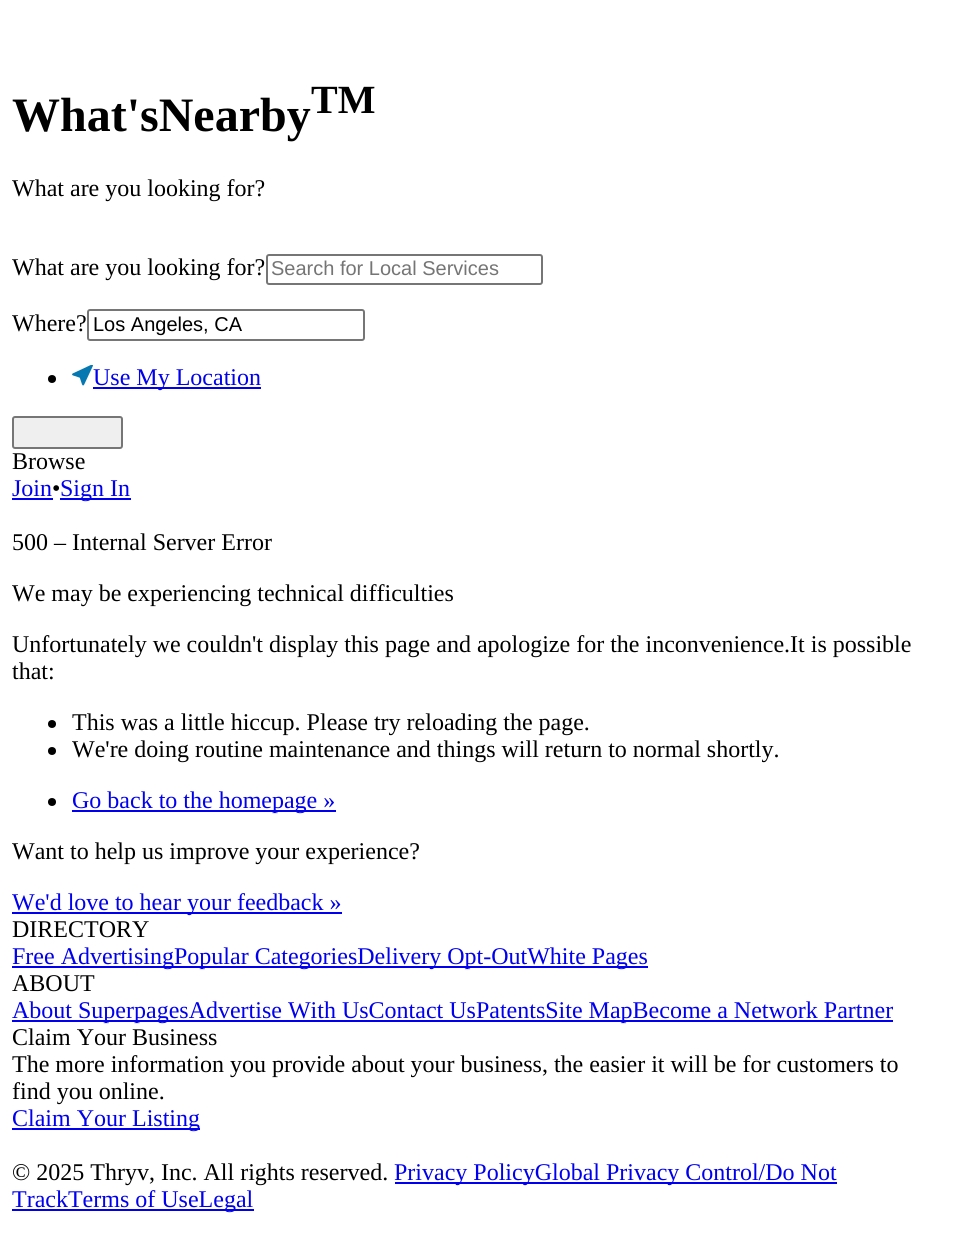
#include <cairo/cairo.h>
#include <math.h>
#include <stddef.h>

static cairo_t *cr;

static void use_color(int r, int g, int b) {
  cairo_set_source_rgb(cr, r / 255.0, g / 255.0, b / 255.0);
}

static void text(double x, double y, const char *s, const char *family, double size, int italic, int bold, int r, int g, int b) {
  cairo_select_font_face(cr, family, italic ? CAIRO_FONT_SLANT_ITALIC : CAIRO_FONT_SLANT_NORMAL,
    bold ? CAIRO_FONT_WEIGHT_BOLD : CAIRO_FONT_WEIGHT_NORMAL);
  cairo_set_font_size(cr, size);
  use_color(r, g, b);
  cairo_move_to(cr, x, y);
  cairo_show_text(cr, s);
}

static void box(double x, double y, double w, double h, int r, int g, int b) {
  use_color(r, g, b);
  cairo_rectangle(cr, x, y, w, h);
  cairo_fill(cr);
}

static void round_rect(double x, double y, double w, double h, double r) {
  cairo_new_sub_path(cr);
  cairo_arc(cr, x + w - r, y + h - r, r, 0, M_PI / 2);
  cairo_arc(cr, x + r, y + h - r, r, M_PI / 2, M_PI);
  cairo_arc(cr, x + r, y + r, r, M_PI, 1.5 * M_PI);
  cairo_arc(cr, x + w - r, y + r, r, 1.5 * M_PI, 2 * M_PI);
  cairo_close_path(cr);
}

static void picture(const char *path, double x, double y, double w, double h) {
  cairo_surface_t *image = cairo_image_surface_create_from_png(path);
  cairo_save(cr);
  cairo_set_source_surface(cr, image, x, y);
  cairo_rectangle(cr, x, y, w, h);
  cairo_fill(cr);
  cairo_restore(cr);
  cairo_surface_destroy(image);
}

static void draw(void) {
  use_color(255, 255, 255);
  cairo_paint(cr);
  round_rect(267, 255, 275, 29, 2);
  use_color(118, 118, 118);
  cairo_stroke(cr);
  round_rect(88, 310, 276, 30, 2);
  cairo_stroke(cr);
  use_color(0, 0, 0);
  cairo_arc(cr, 52, 379, 4, 0, 2 * M_PI);
  cairo_fill(cr);
  picture("img_01.png", 72, 365, 21, 21);
  box(93, 387, 168, 2, 0, 0, 238);
  use_color(239, 239, 239);
  round_rect(13, 417, 109, 31, 2);
  cairo_fill_preserve(cr);
  use_color(118, 118, 118);
  cairo_stroke(cr);
  box(12, 498, 41, 2, 0, 0, 238);
  box(60, 498, 71, 2, 0, 0, 238);
  use_color(0, 0, 0);
  cairo_arc(cr, 52, 724, 4, 0, 2 * M_PI);
  cairo_fill(cr);
  cairo_arc(cr, 52, 751, 4, 0, 2 * M_PI);
  cairo_fill(cr);
  cairo_arc(cr, 52, 802, 4, 0, 2 * M_PI);
  cairo_fill(cr);
  box(72, 810, 264, 2, 0, 0, 238);
  box(12, 912, 330, 2, 0, 0, 238);
  box(12, 966, 636, 2, 0, 0, 238);
  box(12, 1020, 881, 2, 0, 0, 238);
  box(12, 1128, 188, 2, 0, 0, 238);
  box(395, 1182, 442, 2, 0, 0, 238);
  box(12, 1209, 242, 2, 0, 0, 238);
  text(12, 131, "What'sNearby", "Liberation Serif", 48, 0, 1, 0, 0, 0);
  text(311, 113, "TM", "Liberation Serif", 40, 0, 1, 0, 0, 0);
  text(12, 196, "What are you looking for?", "Liberation Serif", 24, 0, 0, 0, 0, 0);
  text(12, 275, "What are you looking for?", "Liberation Serif", 24, 0, 0, 0, 0, 0);
  text(271, 275, "Search for Local Services", "Liberation Sans", 20, 0, 0, 117, 117, 117);
  text(12, 331, "Where?", "Liberation Serif", 24, 0, 0, 0, 0, 0);
  text(93, 331, "Los Angeles, CA", "Liberation Sans", 20, 0, 0, 0, 0, 0);
  text(93, 385, "Use My Location", "Liberation Serif", 24, 0, 0, 0, 0, 238);
  text(12, 469, "Browse", "Liberation Serif", 24, 0, 0, 0, 0, 0);
  text(12, 496, "Join", "Liberation Serif", 24, 0, 0, 0, 0, 238);
  text(52, 496, "•", "Liberation Serif", 24, 0, 0, 0, 0, 0);
  text(60, 496, "Sign In", "Liberation Serif", 24, 0, 0, 0, 0, 238);
  text(12, 550, "500 – Internal Server Error", "Liberation Serif", 24, 0, 0, 0, 0, 0);
  text(12, 601, "We may be experiencing technical difficulties", "Liberation Serif", 24, 0, 0, 0, 0, 0);
  text(12, 652, "Unfortunately we couldn't display this page and apologize for the inconvenience.It is possible", "Liberation Serif", 24, 0, 0, 0, 0, 0);
  text(12, 679, "that:", "Liberation Serif", 24, 0, 0, 0, 0, 0);
  text(72, 730, "This was a little hiccup. Please try reloading the page.", "Liberation Serif", 24, 0, 0, 0, 0, 0);
  text(72, 757, "We're doing routine maintenance and things will return to normal shortly.", "Liberation Serif", 24, 0, 0, 0, 0, 0);
  text(72, 808, "Go back to the homepage »", "Liberation Serif", 24, 0, 0, 0, 0, 238);
  text(12, 859, "Want to help us improve your experience?", "Liberation Serif", 24, 0, 0, 0, 0, 0);
  text(12, 910, "We'd love to hear your feedback »", "Liberation Serif", 24, 0, 0, 0, 0, 238);
  text(12, 937, "DIRECTORY", "Liberation Serif", 24, 0, 0, 0, 0, 0);
  text(12, 964, "Free AdvertisingPopular CategoriesDelivery Opt-OutWhite Pages", "Liberation Serif", 24, 0, 0, 0, 0, 238);
  text(12, 991, "ABOUT", "Liberation Serif", 24, 0, 0, 0, 0, 0);
  text(12, 1018, "About SuperpagesAdvertise With UsContact UsPatentsSite MapBecome a Network Partner", "Liberation Serif", 24, 0, 0, 0, 0, 238);
  text(12, 1045, "Claim Your Business", "Liberation Serif", 24, 0, 0, 0, 0, 0);
  text(12, 1072, "The more information you provide about your business, the easier it will be for customers to", "Liberation Serif", 24, 0, 0, 0, 0, 0);
  text(12, 1099, "find you online.", "Liberation Serif", 24, 0, 0, 0, 0, 0);
  text(12, 1126, "Claim Your Listing", "Liberation Serif", 24, 0, 0, 0, 0, 238);
  text(12, 1180, "© 2025 Thryv, Inc. All rights reserved.", "Liberation Serif", 24, 0, 0, 0, 0, 0);
  text(394, 1180, "Privacy PolicyGlobal Privacy Control/Do Not", "Liberation Serif", 24, 0, 0, 0, 0, 238);
  text(12, 1207, "TrackTerms of UseLegal", "Liberation Serif", 24, 0, 0, 0, 0, 238);
}

int main(void) {
  cairo_surface_t *surface = cairo_image_surface_create(CAIRO_FORMAT_RGB24, 953, 1253);
  cr = cairo_create(surface);
  cairo_font_options_t *options = cairo_font_options_create();
  cairo_font_options_set_hint_metrics(options, CAIRO_HINT_METRICS_OFF);
  cairo_font_options_set_hint_style(options, CAIRO_HINT_STYLE_NONE);
  cairo_set_font_options(cr, options);
  cairo_set_miter_limit(cr, 4);
  draw();
  cairo_surface_write_to_png(surface, "out.png");
  cairo_font_options_destroy(options);
  cairo_destroy(cr);
  cairo_surface_destroy(surface);
  return 0;
}
